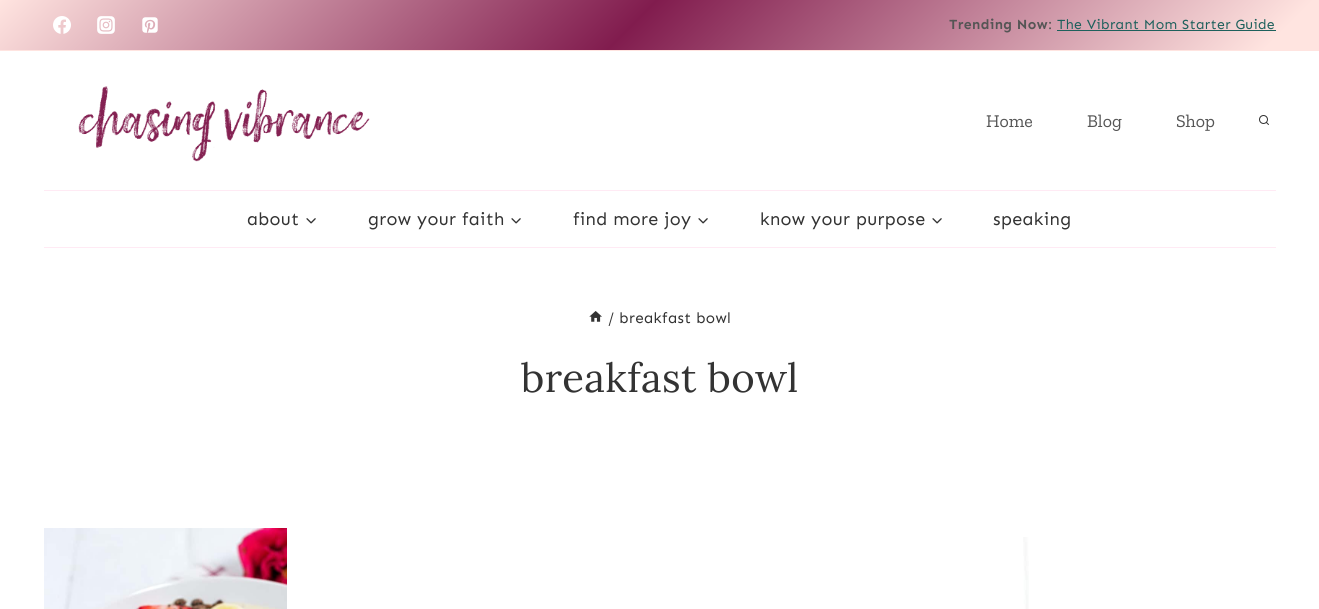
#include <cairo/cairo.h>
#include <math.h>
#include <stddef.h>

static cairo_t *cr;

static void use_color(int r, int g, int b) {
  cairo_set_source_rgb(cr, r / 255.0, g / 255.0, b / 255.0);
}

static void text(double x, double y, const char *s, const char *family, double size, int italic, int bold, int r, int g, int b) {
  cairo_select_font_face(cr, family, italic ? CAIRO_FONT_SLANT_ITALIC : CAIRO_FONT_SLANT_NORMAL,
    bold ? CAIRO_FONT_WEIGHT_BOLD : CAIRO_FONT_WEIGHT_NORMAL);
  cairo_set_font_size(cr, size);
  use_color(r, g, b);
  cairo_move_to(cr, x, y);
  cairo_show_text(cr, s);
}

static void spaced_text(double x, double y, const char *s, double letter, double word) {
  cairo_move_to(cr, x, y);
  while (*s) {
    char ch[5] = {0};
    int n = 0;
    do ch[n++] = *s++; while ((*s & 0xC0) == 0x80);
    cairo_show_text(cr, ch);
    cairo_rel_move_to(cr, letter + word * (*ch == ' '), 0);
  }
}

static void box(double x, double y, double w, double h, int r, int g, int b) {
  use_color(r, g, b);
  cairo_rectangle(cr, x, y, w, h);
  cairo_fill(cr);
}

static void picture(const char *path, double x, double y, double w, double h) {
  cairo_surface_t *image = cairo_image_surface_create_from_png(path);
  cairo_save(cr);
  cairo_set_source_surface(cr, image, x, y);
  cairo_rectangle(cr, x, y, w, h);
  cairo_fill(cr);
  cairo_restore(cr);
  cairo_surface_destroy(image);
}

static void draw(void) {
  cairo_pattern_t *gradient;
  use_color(255, 255, 255);
  cairo_paint(cr);
  gradient = cairo_pattern_create_linear(317, -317, 1002, 367);
  cairo_pattern_add_color_stop_rgba(gradient, 0, 1, 0.894, 0.878, 1);
  cairo_pattern_add_color_stop_rgba(gradient, 0.48, 0.506, 0.11, 0.306, 1);
  cairo_pattern_add_color_stop_rgba(gradient, 0.96, 1, 0.894, 0.878, 1);
  cairo_set_source(cr, gradient);
  cairo_pattern_destroy(gradient);
  cairo_rectangle(cr, 0, 0, 1319, 50);
  cairo_fill(cr);
  box(0, 50, 1319, 1, 255, 228, 224);
  picture("img_01.png", 53, 16, 18, 18);
  picture("img_02.png", 97, 16, 18, 18);
  picture("img_03.png", 142, 17, 16, 16);
  box(1057, 30, 219, 1, 30, 96, 92);
  picture("img_04.png", 78, 86, 292, 76);
  picture("img_05.png", 1259, 115, 10, 10);
  box(44, 190, 1232, 1, 255, 234, 244);
  box(44, 247, 1232, 1, 255, 234, 244);
  picture("img_06.png", 306, 218, 10, 6);
  picture("img_06.png", 511, 218, 10, 6);
  picture("img_06.png", 698, 218, 10, 6);
  picture("img_06.png", 932, 218, 10, 6);
  picture("img_07.png", 589, 311, 13, 11);
  picture("img_08.png", 44, 528, 243, 81);
  picture("img_09.png", 1023, 537, 6, 72);
  cairo_select_font_face(cr, "Sen", CAIRO_FONT_SLANT_NORMAL, CAIRO_FONT_WEIGHT_BOLD);
  cairo_set_font_size(cr, 14);
  use_color(85, 85, 85);
  spaced_text(949, 29, "Trending Now", 0.35, 0);
  cairo_select_font_face(cr, "Sen", CAIRO_FONT_SLANT_NORMAL, CAIRO_FONT_WEIGHT_NORMAL);
  spaced_text(1048, 29, ":", 0.35, 0);
  use_color(30, 96, 92);
  spaced_text(1057, 29, "The Vibrant Mom Starter Guide", 0.35, 0);
  text(986, 127, "Home", "Zilla Slab", 18, 0, 0, 85, 85, 85);
  text(1087, 127, "Blog", "Zilla Slab", 18, 0, 0, 85, 85, 85);
  text(1176, 127, "Shop", "Zilla Slab", 18, 0, 0, 85, 85, 85);
  cairo_select_font_face(cr, "Sen", CAIRO_FONT_SLANT_NORMAL, CAIRO_FONT_WEIGHT_NORMAL);
  use_color(51, 51, 51);
  spaced_text(247, 225, "about", 0.35, 0);
  spaced_text(368, 225, "grow your faith", 0.35, 0);
  spaced_text(573, 225, "find more joy", 0.35, 0);
  spaced_text(760, 225, "know your purpose", 0.35, 0);
  spaced_text(993, 225, "speaking", 0.35, 0);
  cairo_set_font_size(cr, 15.25);
  spaced_text(608, 323, "/ breakfast bowl", 0.35, 0);
  cairo_select_font_face(cr, "Lora", CAIRO_FONT_SLANT_NORMAL, CAIRO_FONT_WEIGHT_NORMAL);
  cairo_set_font_size(cr, 40);
  spaced_text(521, 392, "breakfast bowl", 0.35, 0);
}

int main(void) {
  cairo_surface_t *surface = cairo_image_surface_create(CAIRO_FORMAT_RGB24, 1319, 609);
  cr = cairo_create(surface);
  cairo_font_options_t *options = cairo_font_options_create();
  cairo_font_options_set_hint_metrics(options, CAIRO_HINT_METRICS_OFF);
  cairo_font_options_set_hint_style(options, CAIRO_HINT_STYLE_NONE);
  cairo_set_font_options(cr, options);
  cairo_set_miter_limit(cr, 4);
  draw();
  cairo_surface_write_to_png(surface, "out.png");
  cairo_font_options_destroy(options);
  cairo_destroy(cr);
  cairo_surface_destroy(surface);
  return 0;
}
